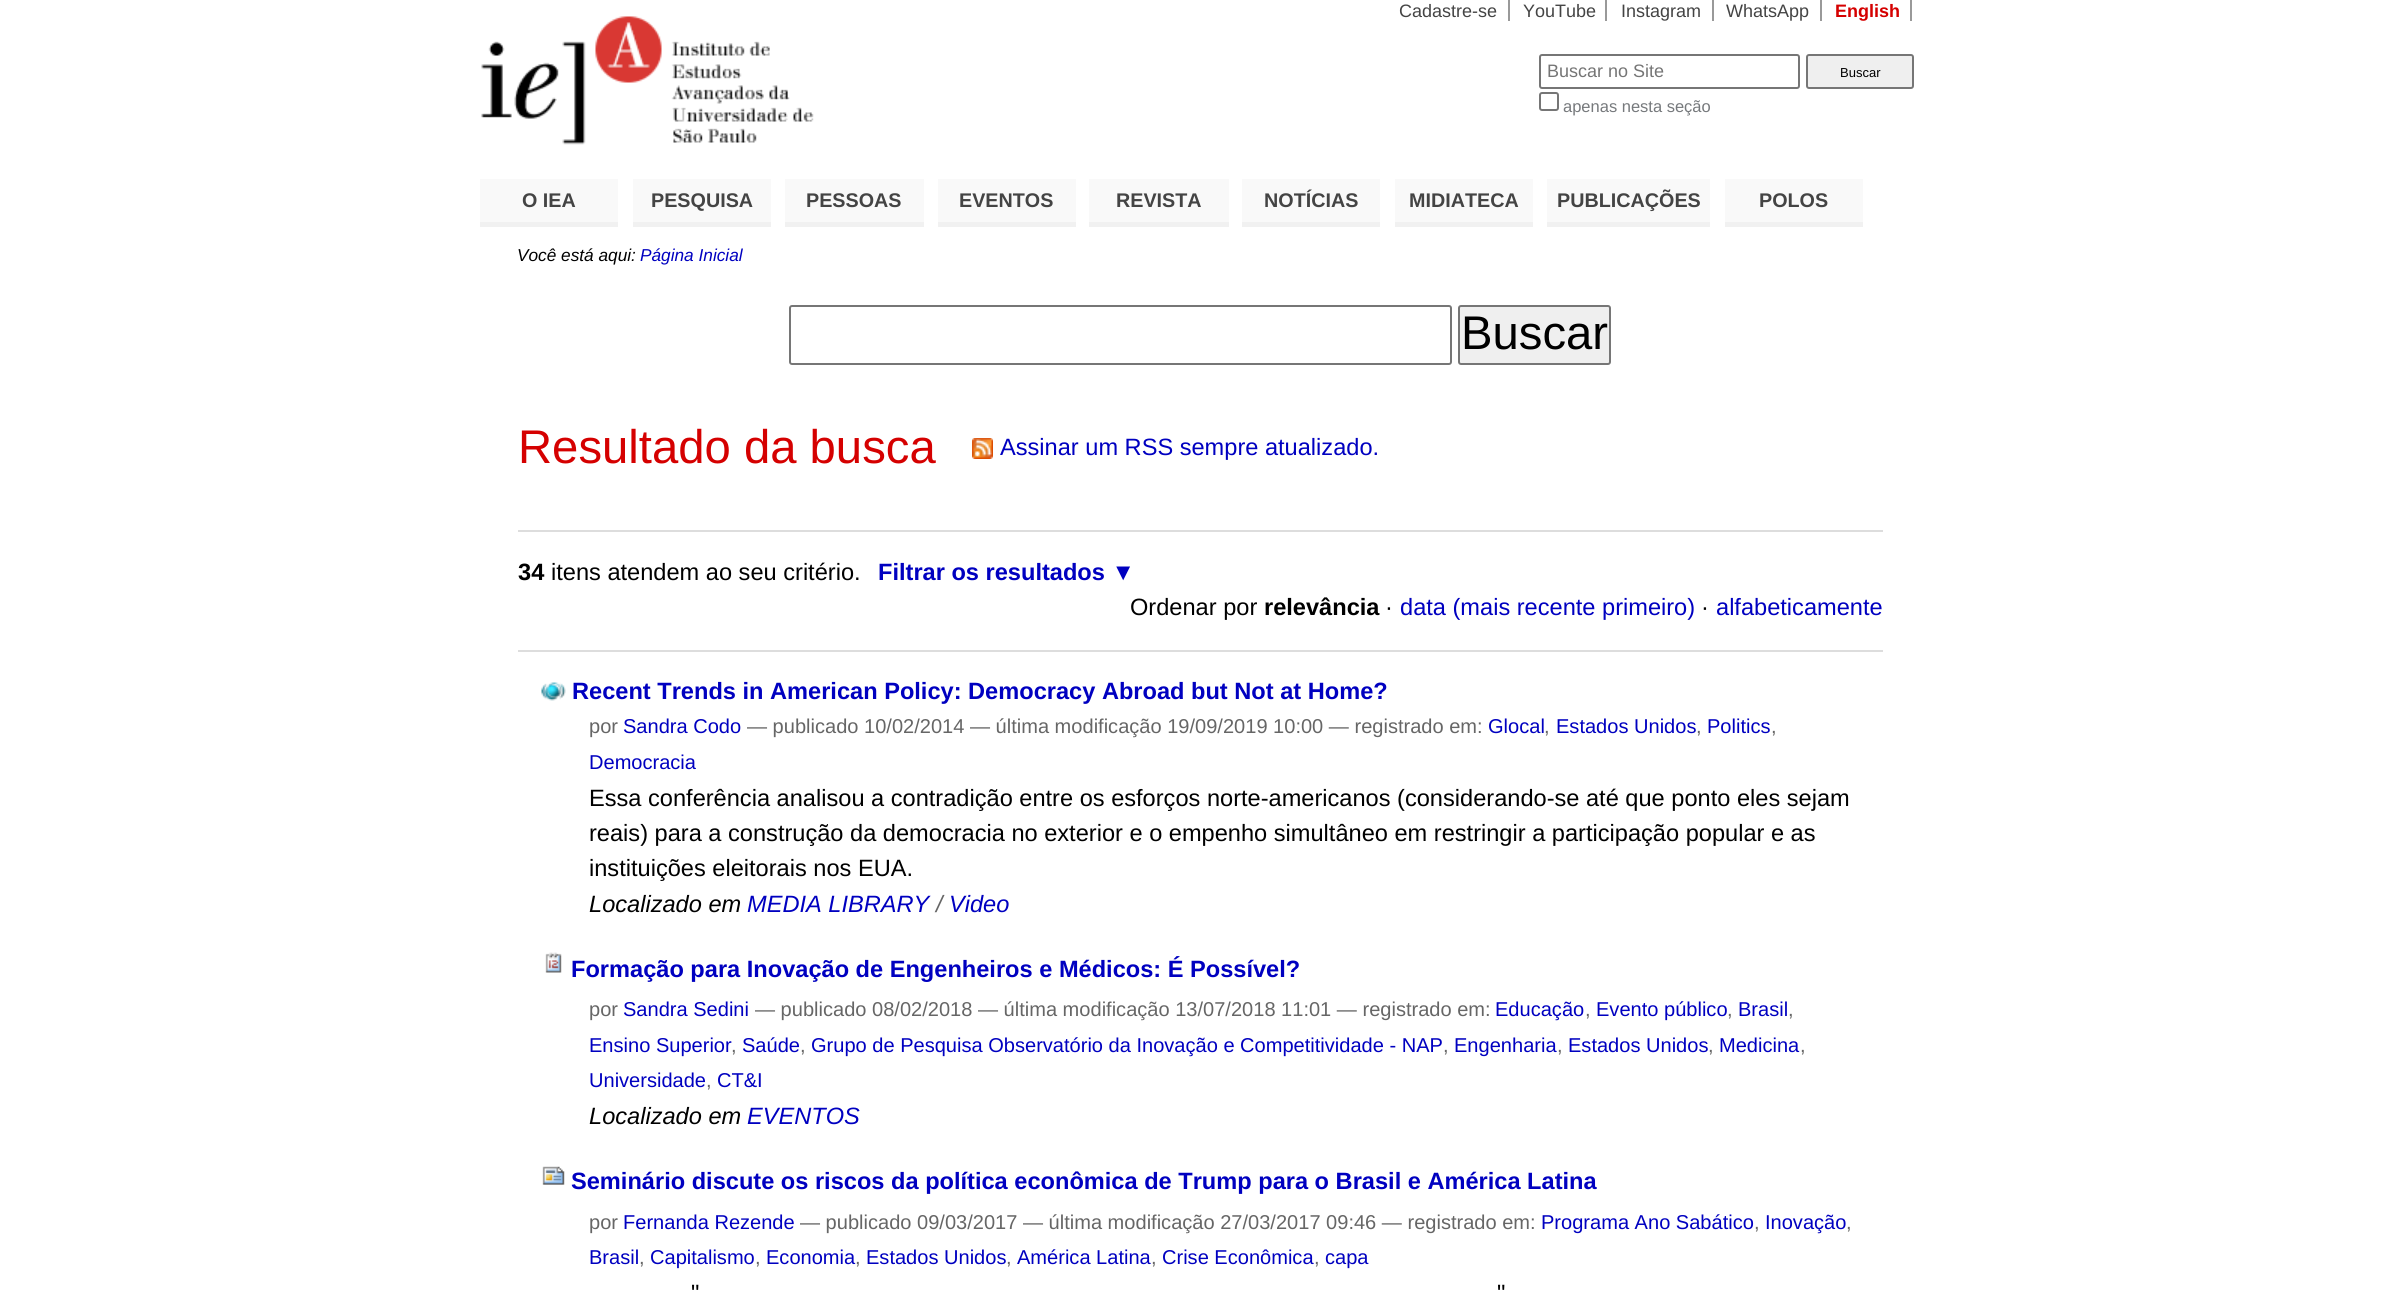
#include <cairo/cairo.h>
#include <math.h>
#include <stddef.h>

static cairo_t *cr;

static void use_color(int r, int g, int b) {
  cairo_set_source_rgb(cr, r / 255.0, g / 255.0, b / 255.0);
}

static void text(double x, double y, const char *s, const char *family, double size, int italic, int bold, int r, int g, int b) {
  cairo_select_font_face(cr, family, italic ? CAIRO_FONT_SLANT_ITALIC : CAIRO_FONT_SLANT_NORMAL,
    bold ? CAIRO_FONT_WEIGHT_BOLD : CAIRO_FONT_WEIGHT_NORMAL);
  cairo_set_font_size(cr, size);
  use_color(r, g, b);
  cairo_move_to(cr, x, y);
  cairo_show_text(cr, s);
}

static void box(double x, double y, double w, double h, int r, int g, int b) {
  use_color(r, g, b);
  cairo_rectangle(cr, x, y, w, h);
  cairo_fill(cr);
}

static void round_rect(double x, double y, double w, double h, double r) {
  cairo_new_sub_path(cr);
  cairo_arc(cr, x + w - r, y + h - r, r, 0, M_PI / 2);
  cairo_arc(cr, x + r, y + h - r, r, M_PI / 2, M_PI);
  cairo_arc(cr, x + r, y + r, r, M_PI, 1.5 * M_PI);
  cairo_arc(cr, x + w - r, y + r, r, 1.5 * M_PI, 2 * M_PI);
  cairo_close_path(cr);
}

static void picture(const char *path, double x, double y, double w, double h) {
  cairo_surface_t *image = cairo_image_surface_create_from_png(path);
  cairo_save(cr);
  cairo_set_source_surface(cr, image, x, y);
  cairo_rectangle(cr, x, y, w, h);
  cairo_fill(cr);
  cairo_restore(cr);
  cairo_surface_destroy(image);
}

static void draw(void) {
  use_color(255, 255, 255);
  cairo_paint(cr);
  box(1508, 0, 2, 21, 153, 153, 153);
  box(1605, 0, 2, 21, 153, 153, 153);
  box(1712, 0, 2, 21, 153, 153, 153);
  box(1820, 0, 2, 21, 153, 153, 153);
  box(1910, 0, 2, 21, 153, 153, 153);
  picture("img_01.png", 481, 16, 333, 129);
  round_rect(1540, 55, 259, 33, 2);
  use_color(118, 118, 118);
  cairo_stroke(cr);
  use_color(239, 239, 239);
  round_rect(1807, 55, 106, 33, 2);
  cairo_fill_preserve(cr);
  use_color(118, 118, 118);
  cairo_stroke(cr);
  round_rect(1540, 93, 18, 17, 2);
  cairo_stroke(cr);
  box(480, 179, 138, 43, 249, 249, 249);
  box(480, 222, 138, 5, 241, 241, 241);
  box(633, 179, 138, 43, 249, 249, 249);
  box(633, 222, 138, 5, 241, 241, 241);
  box(785, 179, 139, 43, 249, 249, 249);
  box(785, 222, 139, 5, 241, 241, 241);
  box(938, 179, 138, 43, 249, 249, 249);
  box(938, 222, 138, 5, 241, 241, 241);
  box(1089, 179, 140, 43, 249, 249, 249);
  box(1089, 222, 140, 5, 241, 241, 241);
  box(1242, 179, 138, 43, 249, 249, 249);
  box(1242, 222, 138, 5, 241, 241, 241);
  box(1395, 179, 138, 43, 249, 249, 249);
  box(1395, 222, 138, 5, 241, 241, 241);
  box(1547, 179, 163, 43, 249, 249, 249);
  box(1547, 222, 163, 5, 241, 241, 241);
  box(1725, 179, 138, 43, 249, 249, 249);
  box(1725, 222, 138, 5, 241, 241, 241);
  round_rect(790, 306, 661, 58, 2);
  use_color(118, 118, 118);
  cairo_stroke(cr);
  use_color(239, 239, 239);
  round_rect(1459, 306, 151, 58, 2);
  cairo_fill_preserve(cr);
  use_color(118, 118, 118);
  cairo_stroke(cr);
  picture("img_02.png", 972, 438, 21, 21);
  box(518, 530, 1365, 2, 221, 221, 221);
  box(518, 650, 1365, 2, 221, 221, 221);
  picture("img_03.png", 541, 682, 25, 19);
  picture("img_04.png", 545, 952, 17, 21);
  picture("img_05.png", 542, 1166, 23, 19);
  text(1399, 17, "Cadastre-se", "Liberation Sans", 18, 0, 0, 68, 68, 68);
  text(1523, 17, "YouTube", "Liberation Sans", 18, 0, 0, 68, 68, 68);
  text(1621, 17, "Instagram", "Liberation Sans", 18, 0, 0, 68, 68, 68);
  text(1726, 17, "WhatsApp", "Liberation Sans", 18, 0, 0, 68, 68, 68);
  text(1835, 17, "English", "Liberation Sans", 18, 0, 1, 213, 0, 0);
  text(1547, 77, "Buscar no Site", "Liberation Sans", 18, 0, 0, 117, 117, 117);
  text(1840, 77, "Buscar", "Liberation Sans", 13, 0, 0, 0, 0, 0);
  text(1563, 112, "apenas nesta seção", "Liberation Sans", 16.5, 0, 0, 118, 121, 124);
  text(522, 207, "O IEA", "Liberation Sans", 19.75, 0, 1, 68, 68, 68);
  text(651, 207, "PESQUISA", "Liberation Sans", 19.75, 0, 1, 68, 68, 68);
  text(806, 207, "PESSOAS", "Liberation Sans", 19.75, 0, 1, 68, 68, 68);
  text(959, 207, "EVENTOS", "Liberation Sans", 19.75, 0, 1, 68, 68, 68);
  text(1116, 207, "REVISTA", "Liberation Sans", 19.75, 0, 1, 68, 68, 68);
  text(1264, 207, "NOTÍCIAS", "Liberation Sans", 19.75, 0, 1, 68, 68, 68);
  text(1409, 207, "MIDIATECA", "Liberation Sans", 19.75, 0, 1, 68, 68, 68);
  text(1557, 207, "PUBLICAÇÕES", "Liberation Sans", 19.75, 0, 1, 68, 68, 68);
  text(1759, 207, "POLOS", "Liberation Sans", 19.75, 0, 1, 68, 68, 68);
  text(517, 261, "Você está aqui:", "Liberation Sans", 17.25, 1, 0, 0, 0, 0);
  text(640, 261, "Página Inicial", "Liberation Sans", 17.25, 1, 0, 0, 0, 192);
  text(1461, 349, "Buscar", "Liberation Sans", 47.25, 0, 0, 0, 0, 0);
  text(518, 463, "Resultado da busca", "Liberation Sans", 47.25, 0, 0, 213, 0, 0);
  text(1000, 455, "Assinar um RSS sempre atualizado.", "Liberation Sans", 23.6, 0, 0, 0, 0, 192);
  text(518, 580, "34", "Liberation Sans", 23.6, 0, 1, 0, 0, 0);
  text(551, 580, "itens atendem ao seu critério.", "Liberation Sans", 23.6, 0, 0, 0, 0, 0);
  text(878, 580, "Filtrar os resultados ▼", "Liberation Sans", 23.6, 0, 1, 0, 0, 192);
  text(1130, 615, "Ordenar por", "Liberation Sans", 23.6, 0, 0, 0, 0, 0);
  text(1264, 615, "relevância", "Liberation Sans", 23.6, 0, 1, 0, 0, 0);
  text(1385, 615, "·", "Liberation Sans", 23.6, 0, 0, 0, 0, 0);
  text(1400, 615, "data (mais recente primeiro)", "Liberation Sans", 23.6, 0, 0, 0, 0, 192);
  text(1701, 615, "·", "Liberation Sans", 23.6, 0, 0, 0, 0, 0);
  text(1716, 615, "alfabeticamente", "Liberation Sans", 23.6, 0, 0, 0, 0, 192);
  text(572, 699, "Recent Trends in American Policy: Democracy Abroad but Not at Home?", "Liberation Sans", 23.6, 0, 1, 0, 0, 192);
  text(589, 733, "por", "Liberation Sans", 20.05, 0, 0, 102, 102, 102);
  text(623, 733, "Sandra Codo", "Liberation Sans", 20.05, 0, 0, 0, 0, 192);
  text(747, 733, "— publicado 10/02/2014 — última modificação 19/09/2019 10:00 — registrado em:", "Liberation Sans", 20.05, 0, 0, 102, 102, 102);
  text(1488, 733, "Glocal", "Liberation Sans", 20.05, 0, 0, 0, 0, 192);
  text(1544, 733, ",", "Liberation Sans", 20.05, 0, 0, 102, 102, 102);
  text(1556, 733, "Estados Unidos", "Liberation Sans", 20.05, 0, 0, 0, 0, 192);
  text(1696, 733, ",", "Liberation Sans", 20.05, 0, 0, 102, 102, 102);
  text(1707, 733, "Politics", "Liberation Sans", 20.05, 0, 0, 0, 0, 192);
  text(1771, 733, ",", "Liberation Sans", 20.05, 0, 0, 102, 102, 102);
  text(589, 769, "Democracia", "Liberation Sans", 20.05, 0, 0, 0, 0, 192);
  text(589, 806, "Essa conferência analisou a contradição entre os esforços norte-americanos (considerando-se até que ponto eles sejam", "Liberation Sans", 23.6, 0, 0, 0, 0, 0);
  text(589, 841, "reais) para a construção da democracia no exterior e o empenho simultâneo em restringir a participação popular e as", "Liberation Sans", 23.6, 0, 0, 0, 0, 0);
  text(589, 876, "instituições eleitorais nos EUA.", "Liberation Sans", 23.6, 0, 0, 0, 0, 0);
  text(589, 912, "Localizado em", "Liberation Sans", 23.6, 1, 0, 0, 0, 0);
  text(747, 912, "MEDIA LIBRARY", "Liberation Sans", 23.6, 1, 0, 0, 0, 192);
  text(936, 912, "/", "Liberation Sans", 23.6, 1, 0, 102, 102, 102);
  text(949, 912, "Video", "Liberation Sans", 23.6, 1, 0, 0, 0, 192);
  text(571, 977, "Formação para Inovação de Engenheiros e Médicos: É Possível?", "Liberation Sans", 23.6, 0, 1, 0, 0, 192);
  text(589, 1016, "por", "Liberation Sans", 20.05, 0, 0, 102, 102, 102);
  text(623, 1016, "Sandra Sedini", "Liberation Sans", 20.05, 0, 0, 0, 0, 192);
  text(755, 1016, "— publicado 08/02/2018 — última modificação 13/07/2018 11:01 — registrado em:", "Liberation Sans", 20.05, 0, 0, 102, 102, 102);
  text(1495, 1016, "Educação", "Liberation Sans", 20.05, 0, 0, 0, 0, 192);
  text(1585, 1016, ",", "Liberation Sans", 20.05, 0, 0, 102, 102, 102);
  text(1596, 1016, "Evento público", "Liberation Sans", 20.05, 0, 0, 0, 0, 192);
  text(1727, 1016, ",", "Liberation Sans", 20.05, 0, 0, 102, 102, 102);
  text(1738, 1016, "Brasil", "Liberation Sans", 20.05, 0, 0, 0, 0, 192);
  text(1788, 1016, ",", "Liberation Sans", 20.05, 0, 0, 102, 102, 102);
  text(589, 1052, "Ensino Superior", "Liberation Sans", 20.05, 0, 0, 0, 0, 192);
  text(731, 1052, ",", "Liberation Sans", 20.05, 0, 0, 102, 102, 102);
  text(742, 1052, "Saúde", "Liberation Sans", 20.05, 0, 0, 0, 0, 192);
  text(800, 1052, ",", "Liberation Sans", 20.05, 0, 0, 102, 102, 102);
  text(811, 1052, "Grupo de Pesquisa Observatório da Inovação e Competitividade - NAP", "Liberation Sans", 20.05, 0, 0, 0, 0, 192);
  text(1443, 1052, ",", "Liberation Sans", 20.05, 0, 0, 102, 102, 102);
  text(1454, 1052, "Engenharia", "Liberation Sans", 20.05, 0, 0, 0, 0, 192);
  text(1557, 1052, ",", "Liberation Sans", 20.05, 0, 0, 102, 102, 102);
  text(1568, 1052, "Estados Unidos", "Liberation Sans", 20.05, 0, 0, 0, 0, 192);
  text(1708, 1052, ",", "Liberation Sans", 20.05, 0, 0, 102, 102, 102);
  text(1719, 1052, "Medicina", "Liberation Sans", 20.05, 0, 0, 0, 0, 192);
  text(1800, 1052, ",", "Liberation Sans", 20.05, 0, 0, 102, 102, 102);
  text(589, 1087, "Universidade", "Liberation Sans", 20.05, 0, 0, 0, 0, 192);
  text(706, 1087, ",", "Liberation Sans", 20.05, 0, 0, 102, 102, 102);
  text(717, 1087, "CT&I", "Liberation Sans", 20.05, 0, 0, 0, 0, 192);
  text(589, 1124, "Localizado em", "Liberation Sans", 23.6, 1, 0, 0, 0, 0);
  text(747, 1124, "EVENTOS", "Liberation Sans", 23.6, 1, 0, 0, 0, 192);
  text(571, 1189, "Seminário discute os riscos da política econômica de Trump para o Brasil e América Latina", "Liberation Sans", 23.6, 0, 1, 0, 0, 192);
  text(589, 1229, "por", "Liberation Sans", 20.05, 0, 0, 102, 102, 102);
  text(623, 1229, "Fernanda Rezende", "Liberation Sans", 20.05, 0, 0, 0, 0, 192);
  text(800, 1229, "— publicado 09/03/2017 — última modificação 27/03/2017 09:46 — registrado em:", "Liberation Sans", 20.05, 0, 0, 102, 102, 102);
  text(1541, 1229, "Programa Ano Sabático", "Liberation Sans", 20.05, 0, 0, 0, 0, 192);
  text(1754, 1229, ",", "Liberation Sans", 20.05, 0, 0, 102, 102, 102);
  text(1765, 1229, "Inovação", "Liberation Sans", 20.05, 0, 0, 0, 0, 192);
  text(1846, 1229, ",", "Liberation Sans", 20.05, 0, 0, 102, 102, 102);
  text(589, 1264, "Brasil", "Liberation Sans", 20.05, 0, 0, 0, 0, 192);
  text(639, 1264, ",", "Liberation Sans", 20.05, 0, 0, 102, 102, 102);
  text(650, 1264, "Capitalismo", "Liberation Sans", 20.05, 0, 0, 0, 0, 192);
  text(755, 1264, ",", "Liberation Sans", 20.05, 0, 0, 102, 102, 102);
  text(766, 1264, "Economia", "Liberation Sans", 20.05, 0, 0, 0, 0, 192);
  text(855, 1264, ",", "Liberation Sans", 20.05, 0, 0, 102, 102, 102);
  text(866, 1264, "Estados Unidos", "Liberation Sans", 20.05, 0, 0, 0, 0, 192);
  text(1006, 1264, ",", "Liberation Sans", 20.05, 0, 0, 102, 102, 102);
  text(1017, 1264, "América Latina", "Liberation Sans", 20.05, 0, 0, 0, 0, 192);
  text(1151, 1264, ",", "Liberation Sans", 20.05, 0, 0, 102, 102, 102);
  text(1162, 1264, "Crise Econômica", "Liberation Sans", 20.05, 0, 0, 0, 0, 192);
  text(1314, 1264, ",", "Liberation Sans", 20.05, 0, 0, 102, 102, 102);
  text(1325, 1264, "capa", "Liberation Sans", 20.05, 0, 0, 0, 0, 192);
  text(691, 1301, "\"", "Liberation Sans", 23.6, 0, 0, 0, 0, 0);
  text(1497, 1301, "\"", "Liberation Sans", 23.6, 0, 0, 0, 0, 0);
}

int main(void) {
  cairo_surface_t *surface = cairo_image_surface_create(CAIRO_FORMAT_RGB24, 2399, 1293);
  cr = cairo_create(surface);
  cairo_font_options_t *options = cairo_font_options_create();
  cairo_font_options_set_hint_metrics(options, CAIRO_HINT_METRICS_OFF);
  cairo_font_options_set_hint_style(options, CAIRO_HINT_STYLE_NONE);
  cairo_set_font_options(cr, options);
  cairo_set_miter_limit(cr, 4);
  draw();
  cairo_surface_write_to_png(surface, "out.png");
  cairo_font_options_destroy(options);
  cairo_destroy(cr);
  cairo_surface_destroy(surface);
  return 0;
}
